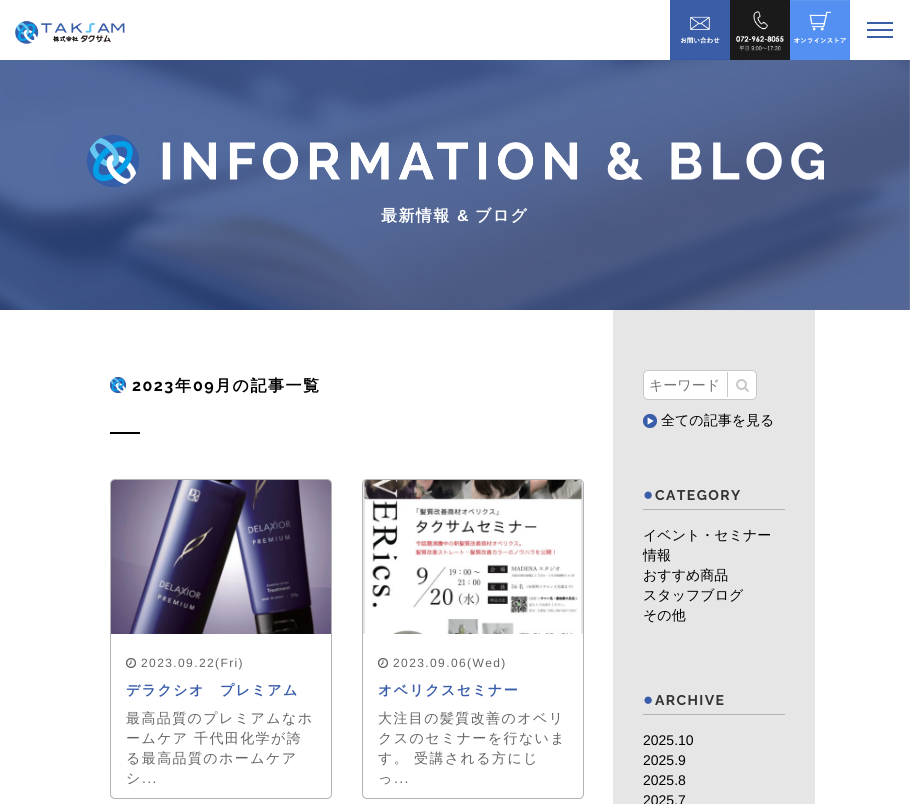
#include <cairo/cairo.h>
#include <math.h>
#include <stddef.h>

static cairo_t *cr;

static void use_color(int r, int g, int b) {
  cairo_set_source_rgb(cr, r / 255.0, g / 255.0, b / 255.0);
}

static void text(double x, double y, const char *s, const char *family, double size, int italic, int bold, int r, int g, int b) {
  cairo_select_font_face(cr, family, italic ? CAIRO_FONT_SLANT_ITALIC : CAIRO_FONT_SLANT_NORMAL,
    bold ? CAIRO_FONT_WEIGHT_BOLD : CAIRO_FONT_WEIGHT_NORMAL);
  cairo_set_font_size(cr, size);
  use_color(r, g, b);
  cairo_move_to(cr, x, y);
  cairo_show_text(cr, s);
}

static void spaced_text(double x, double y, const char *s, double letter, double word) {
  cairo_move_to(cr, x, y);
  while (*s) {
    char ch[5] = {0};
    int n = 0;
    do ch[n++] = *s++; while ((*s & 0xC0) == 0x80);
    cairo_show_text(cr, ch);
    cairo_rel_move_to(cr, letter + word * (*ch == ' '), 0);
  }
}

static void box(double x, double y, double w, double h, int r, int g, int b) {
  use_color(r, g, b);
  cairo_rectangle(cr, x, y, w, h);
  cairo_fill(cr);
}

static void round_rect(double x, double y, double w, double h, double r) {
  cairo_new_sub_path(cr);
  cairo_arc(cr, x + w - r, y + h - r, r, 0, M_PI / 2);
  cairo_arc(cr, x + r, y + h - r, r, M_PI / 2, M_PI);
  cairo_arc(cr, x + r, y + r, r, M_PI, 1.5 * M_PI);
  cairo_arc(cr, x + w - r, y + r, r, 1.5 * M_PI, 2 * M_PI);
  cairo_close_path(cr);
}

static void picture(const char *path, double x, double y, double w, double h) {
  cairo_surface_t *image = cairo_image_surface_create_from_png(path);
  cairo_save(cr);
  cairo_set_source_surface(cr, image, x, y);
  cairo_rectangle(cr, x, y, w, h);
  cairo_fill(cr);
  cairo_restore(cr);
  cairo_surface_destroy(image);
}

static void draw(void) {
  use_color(255, 255, 255);
  cairo_paint(cr);
  picture("img_01.png", 15, 20, 110, 24);
  picture("img_02.png", 670, 0, 60, 60);
  picture("img_03.png", 730, 0, 60, 60);
  picture("img_04.png", 790, 0, 60, 60);
  box(867, 22, 26, 2, 57, 93, 167);
  box(867, 29, 26, 2, 57, 93, 167);
  box(867, 36, 26, 2, 57, 93, 167);
  picture("img_05.png", 0, 60, 910, 250);
  picture("img_06.png", 87, 135, 737, 52);
  picture("img_07.png", 110, 377, 16, 16);
  box(110, 432, 30, 2, 0, 0, 0);
  round_rect(110.5, 479.5, 221, 319, 4.5);
  use_color(179, 179, 179);
  cairo_set_line_width(cr, 1);
  cairo_stroke(cr);
  picture("img_08.png", 111, 480, 220, 154);
  picture("img_09.png", 126, 658, 10, 10);
  round_rect(362.5, 479.5, 221, 319, 4.5);
  cairo_stroke(cr);
  picture("img_10.png", 363, 480, 220, 154);
  picture("img_09.png", 378, 658, 10, 10);
  box(613, 310, 202, 494, 230, 230, 230);
  use_color(255, 255, 255);
  round_rect(643.5, 370.5, 113, 29, 4.5);
  cairo_fill_preserve(cr);
  use_color(200, 200, 200);
  cairo_stroke(cr);
  box(727, 372, 1, 25, 200, 200, 200);
  picture("img_11.png", 736, 379, 13, 13);
  picture("img_12.png", 643, 414, 14, 14);
  box(643, 509, 142, 1, 179, 179, 179);
  box(643, 714, 142, 1, 179, 179, 179);
  cairo_select_font_face(cr, "WenQuanYi Zen Hei", CAIRO_FONT_SLANT_NORMAL, CAIRO_FONT_WEIGHT_BOLD);
  cairo_set_font_size(cr, 16);
  use_color(255, 255, 255);
  spaced_text(381, 221, "最新情報", 1.4, 0);
  cairo_select_font_face(cr, "Liberation Sans", CAIRO_FONT_SLANT_NORMAL, CAIRO_FONT_WEIGHT_BOLD);
  spaced_text(457, 221, "&", 1.4, 0);
  cairo_select_font_face(cr, "WenQuanYi Zen Hei", CAIRO_FONT_SLANT_NORMAL, CAIRO_FONT_WEIGHT_BOLD);
  spaced_text(475, 221, "ブログ", 1.4, 0);
  cairo_select_font_face(cr, "Raleway", CAIRO_FONT_SLANT_NORMAL, CAIRO_FONT_WEIGHT_BOLD);
  use_color(0, 0, 0);
  spaced_text(132, 391, "2023", 1.5, 0);
  cairo_select_font_face(cr, "WenQuanYi Zen Hei", CAIRO_FONT_SLANT_NORMAL, CAIRO_FONT_WEIGHT_BOLD);
  spaced_text(175, 391, "年", 1.5, 0);
  cairo_select_font_face(cr, "Raleway", CAIRO_FONT_SLANT_NORMAL, CAIRO_FONT_WEIGHT_BOLD);
  spaced_text(193, 391, "09", 1.5, 0);
  cairo_select_font_face(cr, "WenQuanYi Zen Hei", CAIRO_FONT_SLANT_NORMAL, CAIRO_FONT_WEIGHT_BOLD);
  spaced_text(215, 391, "月の記事一覧", 1.5, 0);
  cairo_select_font_face(cr, "Liberation Sans", CAIRO_FONT_SLANT_NORMAL, CAIRO_FONT_WEIGHT_NORMAL);
  cairo_set_font_size(cr, 12);
  use_color(100, 100, 100);
  spaced_text(141, 667, "2023.09.22(Fri)", 1.4, 0);
  cairo_select_font_face(cr, "WenQuanYi Zen Hei", CAIRO_FONT_SLANT_NORMAL, CAIRO_FONT_WEIGHT_BOLD);
  cairo_set_font_size(cr, 14);
  use_color(57, 93, 170);
  spaced_text(126, 695, "デラクシオ　プレミアム", 1.4, 0);
  cairo_select_font_face(cr, "WenQuanYi Zen Hei Medium", CAIRO_FONT_SLANT_NORMAL, CAIRO_FONT_WEIGHT_NORMAL);
  use_color(100, 100, 100);
  spaced_text(126, 723, "最高品質のプレミアムなホ", 1.4, 0);
  spaced_text(126, 743, "ームケア", 1.4, 0);
  spaced_text(194, 743, "千代田化学が誇", 1.4, 0);
  spaced_text(126, 763, "る最高品質のホームケア", 1.4, 0);
  spaced_text(126, 783, "シ", 1.4, 0);
  cairo_select_font_face(cr, "Liberation Sans", CAIRO_FONT_SLANT_NORMAL, CAIRO_FONT_WEIGHT_NORMAL);
  spaced_text(142, 783, "...", 1.4, 0);
  cairo_set_font_size(cr, 12);
  spaced_text(393, 667, "2023.09.06(Wed)", 1.4, 0);
  cairo_select_font_face(cr, "WenQuanYi Zen Hei", CAIRO_FONT_SLANT_NORMAL, CAIRO_FONT_WEIGHT_BOLD);
  cairo_set_font_size(cr, 14);
  use_color(57, 93, 170);
  spaced_text(378, 695, "オベリクスセミナー", 1.4, 0);
  cairo_select_font_face(cr, "WenQuanYi Zen Hei Medium", CAIRO_FONT_SLANT_NORMAL, CAIRO_FONT_WEIGHT_NORMAL);
  use_color(100, 100, 100);
  spaced_text(378, 723, "大注目の髪質改善のオベリ", 1.4, 0);
  spaced_text(378, 743, "クスのセミナーを行ないま", 1.4, 0);
  spaced_text(378, 763, "す。", 1.4, 0);
  spaced_text(414, 763, "受講される方にじ", 1.4, 0);
  spaced_text(378, 783, "っ", 1.4, 0);
  cairo_select_font_face(cr, "Liberation Sans", CAIRO_FONT_SLANT_NORMAL, CAIRO_FONT_WEIGHT_NORMAL);
  spaced_text(394, 783, "...", 1.4, 0);
  text(649, 390, "キーワード", "WenQuanYi Zen Hei Medium", 14, 0, 0, 117, 117, 117);
  text(661, 425, "全ての記事を見る", "WenQuanYi Zen Hei Medium", 14, 0, 0, 0, 0, 0);
  cairo_select_font_face(cr, "Liberation Sans", CAIRO_FONT_SLANT_NORMAL, CAIRO_FONT_WEIGHT_BOLD);
  cairo_set_font_size(cr, 17);
  use_color(57, 93, 170);
  spaced_text(643, 500, "●", 1.4, 0);
  cairo_select_font_face(cr, "Raleway", CAIRO_FONT_SLANT_NORMAL, CAIRO_FONT_WEIGHT_BOLD);
  cairo_set_font_size(cr, 14);
  use_color(51, 51, 51);
  spaced_text(655, 500, "CATEGORY", 1.4, 0);
  text(643, 540, "イベント・セミナー", "WenQuanYi Zen Hei Medium", 14, 0, 0, 0, 0, 0);
  text(643, 560, "情報", "WenQuanYi Zen Hei Medium", 14, 0, 0, 0, 0, 0);
  text(643, 580, "おすすめ商品", "WenQuanYi Zen Hei Medium", 14, 0, 0, 0, 0, 0);
  text(643, 600, "スタッフブログ", "WenQuanYi Zen Hei Medium", 14, 0, 0, 0, 0, 0);
  text(643, 620, "その他", "WenQuanYi Zen Hei Medium", 14, 0, 0, 0, 0, 0);
  cairo_select_font_face(cr, "Liberation Sans", CAIRO_FONT_SLANT_NORMAL, CAIRO_FONT_WEIGHT_BOLD);
  cairo_set_font_size(cr, 17);
  use_color(57, 93, 170);
  spaced_text(643, 705, "●", 1.4, 0);
  cairo_select_font_face(cr, "Raleway", CAIRO_FONT_SLANT_NORMAL, CAIRO_FONT_WEIGHT_BOLD);
  cairo_set_font_size(cr, 14);
  use_color(51, 51, 51);
  spaced_text(655, 705, "ARCHIVE", 1.4, 0);
  text(643, 745, "2025.10", "Liberation Sans", 14, 0, 0, 0, 0, 0);
  text(643, 765, "2025.9", "Liberation Sans", 14, 0, 0, 0, 0, 0);
  text(643, 785, "2025.8", "Liberation Sans", 14, 0, 0, 0, 0, 0);
  text(643, 805, "2025.7", "Liberation Sans", 14, 0, 0, 0, 0, 0);
}

int main(void) {
  cairo_surface_t *surface = cairo_image_surface_create(CAIRO_FORMAT_RGB24, 910, 804);
  cr = cairo_create(surface);
  cairo_font_options_t *options = cairo_font_options_create();
  cairo_font_options_set_hint_metrics(options, CAIRO_HINT_METRICS_OFF);
  cairo_font_options_set_hint_style(options, CAIRO_HINT_STYLE_NONE);
  cairo_set_font_options(cr, options);
  cairo_set_miter_limit(cr, 4);
  draw();
  cairo_surface_write_to_png(surface, "out.png");
  cairo_font_options_destroy(options);
  cairo_destroy(cr);
  cairo_surface_destroy(surface);
  return 0;
}
